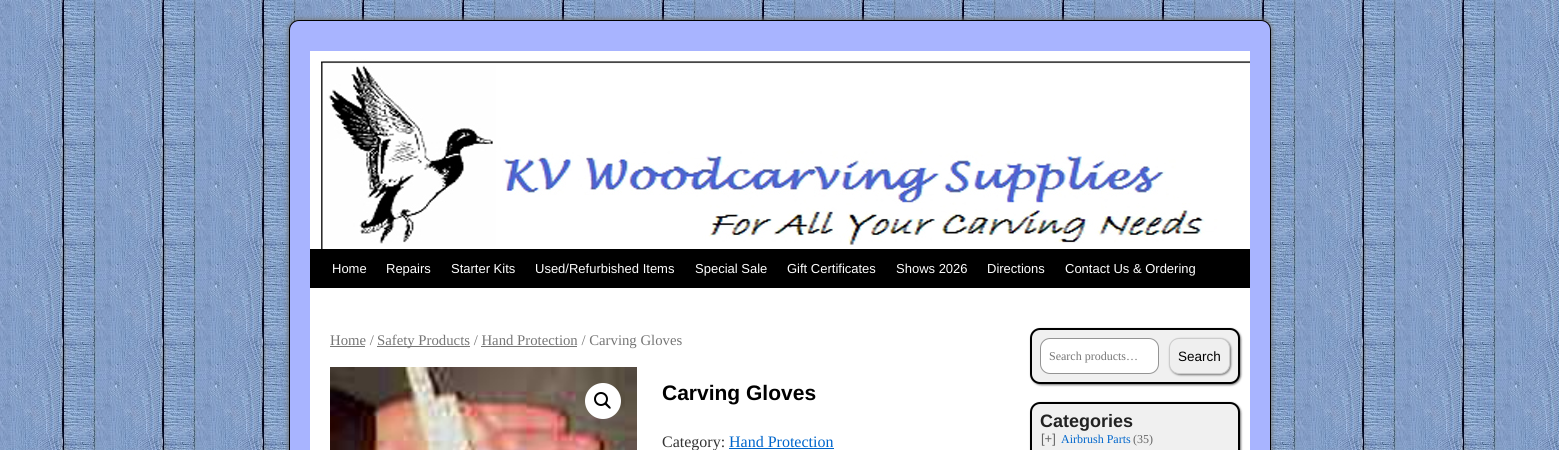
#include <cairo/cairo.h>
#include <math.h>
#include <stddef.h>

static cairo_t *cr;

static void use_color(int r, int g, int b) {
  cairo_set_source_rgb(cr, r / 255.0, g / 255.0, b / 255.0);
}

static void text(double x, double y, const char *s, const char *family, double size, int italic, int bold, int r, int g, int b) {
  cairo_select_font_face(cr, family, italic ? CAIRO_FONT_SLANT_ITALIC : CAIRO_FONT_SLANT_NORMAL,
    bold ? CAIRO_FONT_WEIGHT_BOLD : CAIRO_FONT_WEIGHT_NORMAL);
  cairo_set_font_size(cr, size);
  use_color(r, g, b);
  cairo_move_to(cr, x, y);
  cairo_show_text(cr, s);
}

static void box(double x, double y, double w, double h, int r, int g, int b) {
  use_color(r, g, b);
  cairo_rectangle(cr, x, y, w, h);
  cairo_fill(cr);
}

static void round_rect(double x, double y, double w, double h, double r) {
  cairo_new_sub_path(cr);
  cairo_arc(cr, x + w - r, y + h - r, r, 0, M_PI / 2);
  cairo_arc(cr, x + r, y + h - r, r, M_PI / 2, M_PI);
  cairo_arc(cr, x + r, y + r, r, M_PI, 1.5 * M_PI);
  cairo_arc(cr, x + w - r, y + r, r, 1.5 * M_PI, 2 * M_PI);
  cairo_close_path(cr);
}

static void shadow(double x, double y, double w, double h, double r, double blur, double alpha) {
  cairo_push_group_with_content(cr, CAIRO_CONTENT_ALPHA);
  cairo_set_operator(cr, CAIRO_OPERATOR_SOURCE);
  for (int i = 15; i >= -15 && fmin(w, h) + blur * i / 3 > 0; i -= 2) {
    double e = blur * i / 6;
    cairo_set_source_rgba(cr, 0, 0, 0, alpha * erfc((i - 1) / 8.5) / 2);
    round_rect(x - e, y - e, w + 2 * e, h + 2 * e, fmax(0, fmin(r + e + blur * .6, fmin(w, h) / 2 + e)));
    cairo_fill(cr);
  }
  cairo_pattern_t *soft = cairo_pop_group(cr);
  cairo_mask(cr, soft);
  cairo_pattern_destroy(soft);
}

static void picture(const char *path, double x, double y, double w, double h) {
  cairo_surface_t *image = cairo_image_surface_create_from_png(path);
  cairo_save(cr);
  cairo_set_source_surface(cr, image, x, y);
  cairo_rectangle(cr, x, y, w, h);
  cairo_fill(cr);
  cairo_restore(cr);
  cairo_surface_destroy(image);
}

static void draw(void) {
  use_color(255, 255, 255);
  cairo_paint(cr);
  picture("img_01.png", 0, 0, 1559, 450);
  use_color(119, 119, 119);
  shadow(288, 19, 984, 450, 11, 2.5, 1);
  use_color(168, 180, 255);
  round_rect(289.5, 20.5, 981, 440, 9.5);
  cairo_fill_preserve(cr);
  use_color(0, 0, 0);
  cairo_set_line_width(cr, 1);
  cairo_stroke(cr);
  box(310, 249, 940, 39, 0, 0, 0);
  picture("img_02.png", 310, 51, 940, 198);
  box(310, 288, 940, 162, 255, 255, 255);
  box(330, 346, 35, 1, 118, 118, 118);
  box(377, 346, 93, 1, 118, 118, 118);
  box(481, 346, 96, 1, 118, 118, 118);
  picture("img_03.png", 330, 367, 307, 83);
  use_color(255, 255, 255);
  cairo_arc(cr, 603, 401, 18, 0, 2 * M_PI);
  cairo_fill(cr);
  cairo_arc(cr, 601, 399, 6, 0, 2 * M_PI);
  use_color(0, 0, 0);
  cairo_set_line_width(cr, 2);
  cairo_stroke(cr);
  cairo_new_path(cr);
  cairo_move_to(cr, 605, 403);
  cairo_curve_to(cr, 606, 401.5, 608, 404.5, 608.5, 405);
  cairo_curve_to(cr, 609, 405.5, 611.5, 407.5, 610.5, 408.5);
  cairo_curve_to(cr, 609.5, 409.5, 607.5, 407, 607, 406.5);
  cairo_curve_to(cr, 606.5, 406, 603.5, 404, 605, 403);
  cairo_close_path(cr);
  cairo_fill(cr);
  box(729, 448, 105, 1, 0, 102, 204);
  use_color(119, 119, 119);
  shadow(1031, 329, 210, 56, 10, 1, 1);
  use_color(240, 240, 240);
  round_rect(1031, 329, 208, 54, 9);
  cairo_fill_preserve(cr);
  use_color(0, 0, 0);
  cairo_stroke(cr);
  use_color(255, 255, 255);
  round_rect(1040.5, 338.5, 118, 35, 9.5);
  cairo_fill_preserve(cr);
  use_color(148, 148, 148);
  cairo_set_line_width(cr, 1);
  cairo_stroke(cr);
  use_color(119, 119, 119);
  shadow(1170, 339, 61, 36, 10, 1, 1);
  use_color(239, 239, 239);
  round_rect(1169.5, 338.5, 60, 35, 9.5);
  cairo_fill_preserve(cr);
  use_color(204, 204, 204);
  cairo_stroke(cr);
  use_color(119, 119, 119);
  shadow(1031, 403, 210, 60, 10, 1, 1);
  use_color(240, 240, 240);
  round_rect(1031, 403, 208, 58, 9);
  cairo_fill_preserve(cr);
  use_color(0, 0, 0);
  cairo_set_line_width(cr, 2);
  cairo_stroke(cr);
  text(332, 273, "Home", "Liberation Sans", 13, 0, 0, 255, 255, 255);
  text(386, 273, "Repairs", "Liberation Sans", 13, 0, 0, 255, 255, 255);
  text(451, 273, "Starter Kits", "Liberation Sans", 13, 0, 0, 255, 255, 255);
  text(535, 273, "Used/Refurbished Items", "Liberation Sans", 13, 0, 0, 255, 255, 255);
  text(695, 273, "Special Sale", "Liberation Sans", 13, 0, 0, 255, 255, 255);
  text(787, 273, "Gift Certificates", "Liberation Sans", 13, 0, 0, 255, 255, 255);
  text(896, 273, "Shows 2026", "Liberation Sans", 13, 0, 0, 255, 255, 255);
  text(987, 273, "Directions", "Liberation Sans", 13, 0, 0, 255, 255, 255);
  text(1065, 273, "Contact Us & Ordering", "Liberation Sans", 13, 0, 0, 255, 255, 255);
  text(330, 345, "Home /", "Liberation Serif", 14.75, 0, 0, 118, 118, 118);
  text(377, 345, "Safety Products / Hand Protection / Carving Gloves", "Liberation Serif", 14.75, 0, 0, 118, 118, 118);
  text(662, 400, "Carving Gloves", "Liberation Sans", 21, 0, 1, 0, 0, 0);
  text(662, 447, "Category:", "Liberation Serif", 16, 0, 0, 51, 51, 51);
  text(729, 447, "Hand Protection", "Liberation Serif", 16, 0, 0, 0, 102, 204);
  text(1049, 360, "Search products…", "Liberation Serif", 12, 0, 0, 118, 118, 118);
  text(1178, 361, "Search", "Liberation Sans", 13.5, 0, 0, 0, 0, 0);
  text(1040, 427, "Categories", "Liberation Sans", 18, 0, 1, 34, 34, 34);
  text(1041, 443, "[+]", "Liberation Sans", 13, 0, 0, 102, 102, 102);
  text(1061, 443, "Airbrush Parts", "Liberation Serif", 12, 0, 0, 0, 102, 204);
  text(1133, 443, "(35)", "Liberation Serif", 12, 0, 0, 102, 102, 102);
}

int main(void) {
  cairo_surface_t *surface = cairo_image_surface_create(CAIRO_FORMAT_RGB24, 1559, 450);
  cr = cairo_create(surface);
  cairo_font_options_t *options = cairo_font_options_create();
  cairo_font_options_set_hint_metrics(options, CAIRO_HINT_METRICS_OFF);
  cairo_font_options_set_hint_style(options, CAIRO_HINT_STYLE_NONE);
  cairo_set_font_options(cr, options);
  cairo_set_miter_limit(cr, 4);
  draw();
  cairo_surface_write_to_png(surface, "out.png");
  cairo_font_options_destroy(options);
  cairo_destroy(cr);
  cairo_surface_destroy(surface);
  return 0;
}
